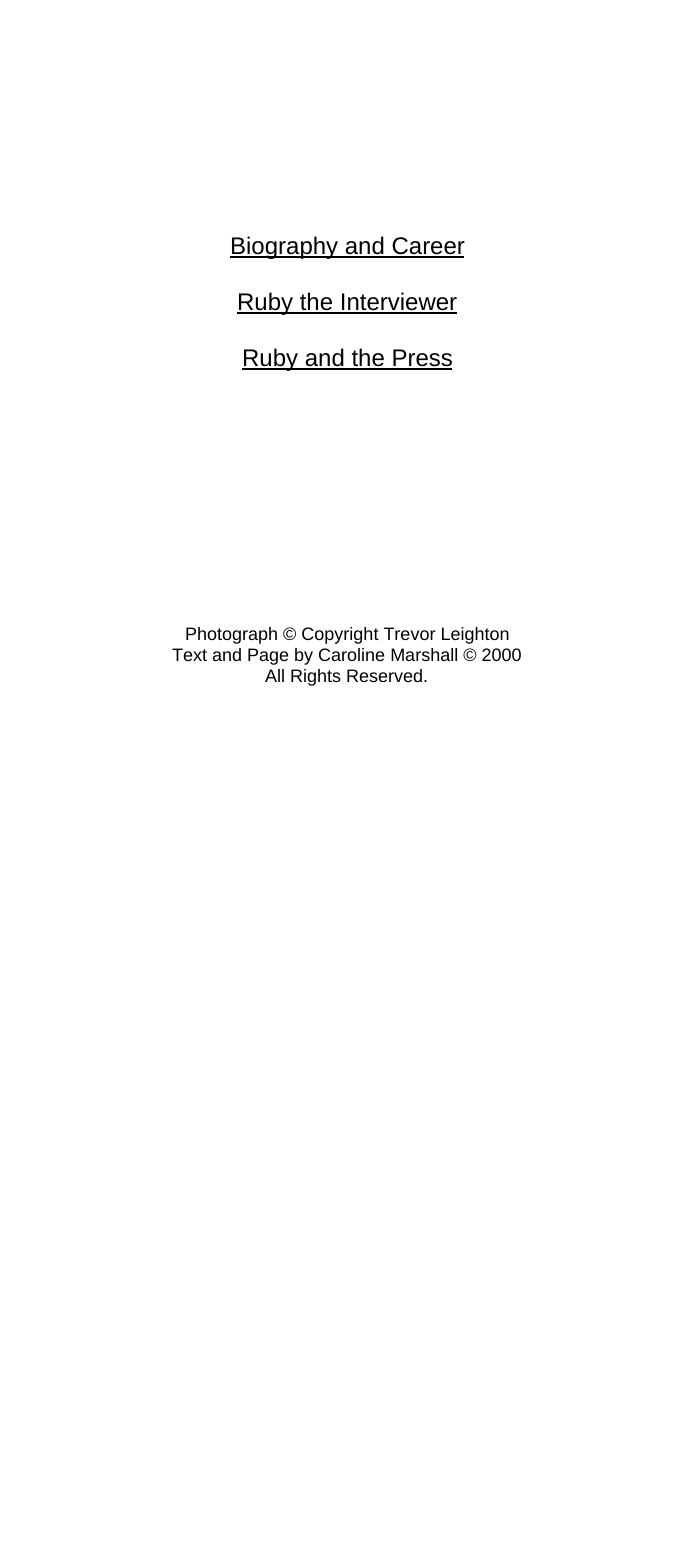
#include <cairo/cairo.h>
#include <math.h>
#include <stddef.h>

static cairo_t *cr;

static void use_color(int r, int g, int b) {
  cairo_set_source_rgb(cr, r / 255.0, g / 255.0, b / 255.0);
}

static void text(double x, double y, const char *s, const char *family, double size, int italic, int bold, int r, int g, int b) {
  cairo_select_font_face(cr, family, italic ? CAIRO_FONT_SLANT_ITALIC : CAIRO_FONT_SLANT_NORMAL,
    bold ? CAIRO_FONT_WEIGHT_BOLD : CAIRO_FONT_WEIGHT_NORMAL);
  cairo_set_font_size(cr, size);
  use_color(r, g, b);
  cairo_move_to(cr, x, y);
  cairo_show_text(cr, s);
}

static void box(double x, double y, double w, double h, int r, int g, int b) {
  use_color(r, g, b);
  cairo_rectangle(cr, x, y, w, h);
  cairo_fill(cr);
}

static void draw(void) {
  use_color(255, 255, 255);
  cairo_paint(cr);
  box(230, 256, 234, 2, 0, 0, 0);
  box(237, 312, 220, 2, 0, 0, 0);
  box(242, 368, 210, 2, 0, 0, 0);
  text(230, 254, "Biography and Career", "Liberation Sans", 24, 0, 0, 0, 0, 0);
  text(237, 310, "Ruby the Interviewer", "Liberation Sans", 24, 0, 0, 0, 0, 0);
  text(242, 366, "Ruby and the Press", "Liberation Sans", 24, 0, 0, 0, 0, 0);
  text(185, 640, "Photograph © Copyright Trevor Leighton", "Liberation Sans", 18, 0, 0, 0, 0, 0);
  text(172, 661, "Text and Page by Caroline Marshall © 2000", "Liberation Sans", 18, 0, 0, 0, 0, 0);
  text(265, 682, "All Rights Reserved.", "Liberation Sans", 18, 0, 0, 0, 0, 0);
}

int main(void) {
  cairo_surface_t *surface = cairo_image_surface_create(CAIRO_FORMAT_RGB24, 694, 1550);
  cr = cairo_create(surface);
  cairo_font_options_t *options = cairo_font_options_create();
  cairo_font_options_set_hint_metrics(options, CAIRO_HINT_METRICS_OFF);
  cairo_font_options_set_hint_style(options, CAIRO_HINT_STYLE_NONE);
  cairo_set_font_options(cr, options);
  cairo_set_miter_limit(cr, 4);
  draw();
  cairo_surface_write_to_png(surface, "out.png");
  cairo_font_options_destroy(options);
  cairo_destroy(cr);
  cairo_surface_destroy(surface);
  return 0;
}
